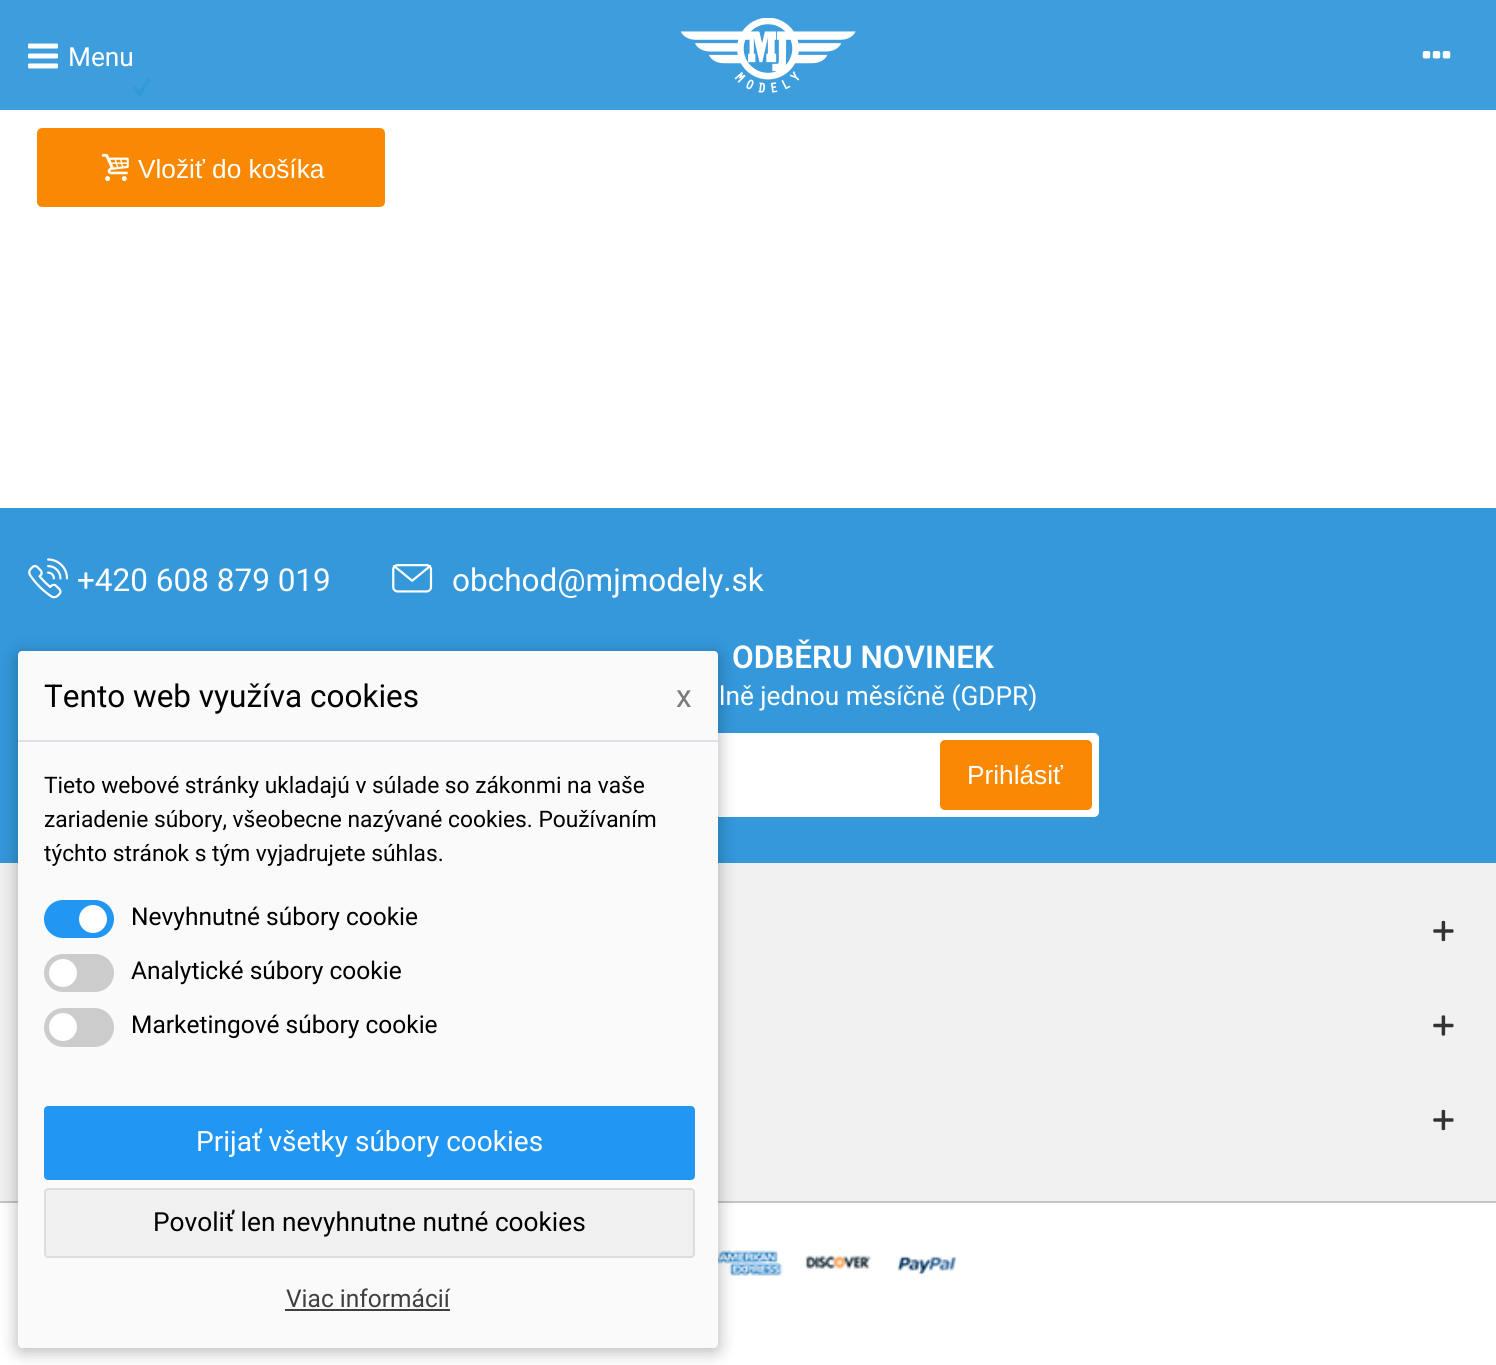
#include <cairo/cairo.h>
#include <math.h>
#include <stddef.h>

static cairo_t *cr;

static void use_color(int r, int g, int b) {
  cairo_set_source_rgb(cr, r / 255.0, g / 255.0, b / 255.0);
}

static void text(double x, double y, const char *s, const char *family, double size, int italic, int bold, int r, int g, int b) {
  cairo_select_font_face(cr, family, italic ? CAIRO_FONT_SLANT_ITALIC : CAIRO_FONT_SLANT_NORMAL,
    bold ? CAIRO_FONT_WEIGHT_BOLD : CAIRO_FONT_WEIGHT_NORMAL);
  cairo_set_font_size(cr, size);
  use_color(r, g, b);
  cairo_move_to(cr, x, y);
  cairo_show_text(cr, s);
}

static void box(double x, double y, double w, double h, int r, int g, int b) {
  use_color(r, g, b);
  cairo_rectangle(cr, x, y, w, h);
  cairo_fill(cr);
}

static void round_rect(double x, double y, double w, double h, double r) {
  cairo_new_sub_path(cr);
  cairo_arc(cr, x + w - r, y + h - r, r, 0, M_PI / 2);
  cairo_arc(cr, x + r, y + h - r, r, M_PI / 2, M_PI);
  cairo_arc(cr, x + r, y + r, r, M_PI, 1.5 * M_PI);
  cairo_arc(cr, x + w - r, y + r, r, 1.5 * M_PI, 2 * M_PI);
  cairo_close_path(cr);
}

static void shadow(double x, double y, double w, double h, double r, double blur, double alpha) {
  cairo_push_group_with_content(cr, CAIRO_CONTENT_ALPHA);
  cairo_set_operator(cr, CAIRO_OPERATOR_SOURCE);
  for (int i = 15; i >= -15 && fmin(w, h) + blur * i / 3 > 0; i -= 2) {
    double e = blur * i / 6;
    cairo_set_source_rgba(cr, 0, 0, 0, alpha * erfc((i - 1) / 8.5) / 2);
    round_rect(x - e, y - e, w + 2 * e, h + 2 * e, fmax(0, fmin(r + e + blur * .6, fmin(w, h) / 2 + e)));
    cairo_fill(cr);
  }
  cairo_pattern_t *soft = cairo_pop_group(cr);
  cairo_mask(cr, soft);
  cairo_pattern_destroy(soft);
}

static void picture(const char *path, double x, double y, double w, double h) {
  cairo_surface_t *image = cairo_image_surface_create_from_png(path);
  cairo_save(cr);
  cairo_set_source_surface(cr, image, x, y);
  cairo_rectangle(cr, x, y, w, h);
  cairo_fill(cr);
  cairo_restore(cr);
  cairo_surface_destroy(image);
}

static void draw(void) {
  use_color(255, 255, 255);
  cairo_paint(cr);
  box(0, 0, 1496, 110, 62, 157, 221);
  picture("img_01.png", 28, 43, 30, 26);
  picture("img_02.png", 681, 18, 175, 75);
  picture("img_03.png", 1422, 51, 29, 8);
  picture("img_04.png", 133, 77, 18, 20);
  use_color(249, 137, 3);
  round_rect(39, 130, 344, 75, 3);
  cairo_fill_preserve(cr);
  cairo_set_line_width(cr, 4);
  cairo_stroke(cr);
  picture("img_05.png", 101, 153, 28, 28);
  box(0, 508, 1496, 355, 52, 152, 219);
  picture("img_06.png", 28, 558, 41, 41);
  picture("img_07.png", 392, 564, 41, 29);
  use_color(255, 255, 255);
  round_rect(400, 734, 698, 82, 4);
  cairo_fill_preserve(cr);
  cairo_set_line_width(cr, 2);
  cairo_stroke(cr);
  use_color(249, 137, 3);
  round_rect(940, 740, 152, 70, 5);
  cairo_fill(cr);
  box(0, 863, 1496, 338, 241, 241, 241);
  picture("img_08.png", 1433, 920, 21, 22);
  picture("img_09.png", 1433, 1015, 21, 21);
  picture("img_08.png", 1433, 1109, 21, 22);
  box(0, 1201, 1496, 2, 196, 196, 196);
  picture("img_10.png", 718, 1248, 238, 31);
  use_color(0, 0, 0);
  shadow(18, 655, 700, 696, 4, 9, 0.3);
  use_color(250, 250, 250);
  round_rect(18, 651, 700, 697, 4);
  cairo_fill(cr);
  box(18, 740, 700, 2, 222, 226, 230);
  use_color(33, 150, 243);
  round_rect(44, 900, 70, 38, 19);
  cairo_fill(cr);
  use_color(255, 255, 255);
  cairo_arc(cr, 93, 919, 14, 0, 2 * M_PI);
  cairo_fill(cr);
  use_color(204, 204, 204);
  round_rect(44, 954, 70, 38, 19);
  cairo_fill(cr);
  use_color(255, 255, 255);
  cairo_arc(cr, 63, 973, 14, 0, 2 * M_PI);
  cairo_fill(cr);
  use_color(204, 204, 204);
  round_rect(44, 1008, 70, 39, 19.5);
  cairo_fill(cr);
  use_color(255, 255, 255);
  cairo_arc(cr, 63, 1027, 14, 0, 2 * M_PI);
  cairo_fill(cr);
  use_color(33, 150, 243);
  round_rect(45, 1107, 649, 72, 3);
  cairo_fill_preserve(cr);
  cairo_stroke(cr);
  use_color(240, 240, 240);
  round_rect(45, 1189, 649, 68, 3);
  cairo_fill_preserve(cr);
  use_color(221, 221, 221);
  cairo_stroke(cr);
  box(285, 1309, 165, 2, 63, 63, 63);
  text(68, 66, "Menu", "Roboto", 26.25, 0, 0, 255, 255, 255);
  text(138, 178, "Vložiť do košíka", "Liberation Sans", 26.25, 0, 0, 255, 255, 255);
  text(77, 591, "+420 608 879 019", "Roboto", 31.5, 0, 0, 255, 255, 255);
  text(452, 591, "obchod@mjmodely.sk", "Roboto", 31.5, 0, 0, 255, 255, 255);
  text(732, 668, "ODBĚRU NOVINEK", "Roboto SemiBold", 31.5, 0, 0, 255, 255, 255);
  text(719, 705, "lně jednou měsíčně (GDPR)", "Roboto", 26.25, 0, 0, 255, 255, 255);
  text(967, 784, "Prihlásiť", "Liberation Sans", 26.25, 0, 0, 255, 255, 255);
  text(44, 707, "Tento web využíva cookies", "Roboto", 31.5, 0, 0, 0, 0, 0);
  text(676, 707, "x", "Roboto", 31.5, 0, 0, 122, 122, 122);
  text(44, 793, "Tieto webové stránky ukladajú v súlade so zákonmi na vaše", "Roboto", 22.75, 0, 0, 0, 0, 0);
  text(44, 827, "zariadenie súbory, všeobecne nazývané cookies. Používaním", "Roboto", 22.75, 0, 0, 0, 0, 0);
  text(44, 861, "týchto stránok s tým vyjadrujete súhlas.", "Roboto", 22.75, 0, 0, 0, 0, 0);
  text(131, 925, "Nevyhnutné súbory cookie", "Roboto", 24.5, 0, 0, 0, 0, 0);
  text(131, 979, "Analytické súbory cookie", "Roboto", 24.5, 0, 0, 0, 0, 0);
  text(131, 1033, "Marketingové súbory cookie", "Roboto", 24.5, 0, 0, 0, 0, 0);
  text(196, 1151, "Prijať všetky súbory cookies", "Roboto", 28, 0, 0, 255, 255, 255);
  text(153, 1231, "Povoliť len nevyhnutne nutné cookies", "Roboto", 26.25, 0, 0, 0, 0, 0);
  text(286, 1307, "Viac informácií", "Roboto", 24.5, 0, 0, 63, 63, 63);
}

int main(void) {
  cairo_surface_t *surface = cairo_image_surface_create(CAIRO_FORMAT_RGB24, 1496, 1365);
  cr = cairo_create(surface);
  cairo_font_options_t *options = cairo_font_options_create();
  cairo_font_options_set_hint_metrics(options, CAIRO_HINT_METRICS_OFF);
  cairo_font_options_set_hint_style(options, CAIRO_HINT_STYLE_NONE);
  cairo_set_font_options(cr, options);
  cairo_set_miter_limit(cr, 4);
  draw();
  cairo_surface_write_to_png(surface, "out.png");
  cairo_font_options_destroy(options);
  cairo_destroy(cr);
  cairo_surface_destroy(surface);
  return 0;
}
